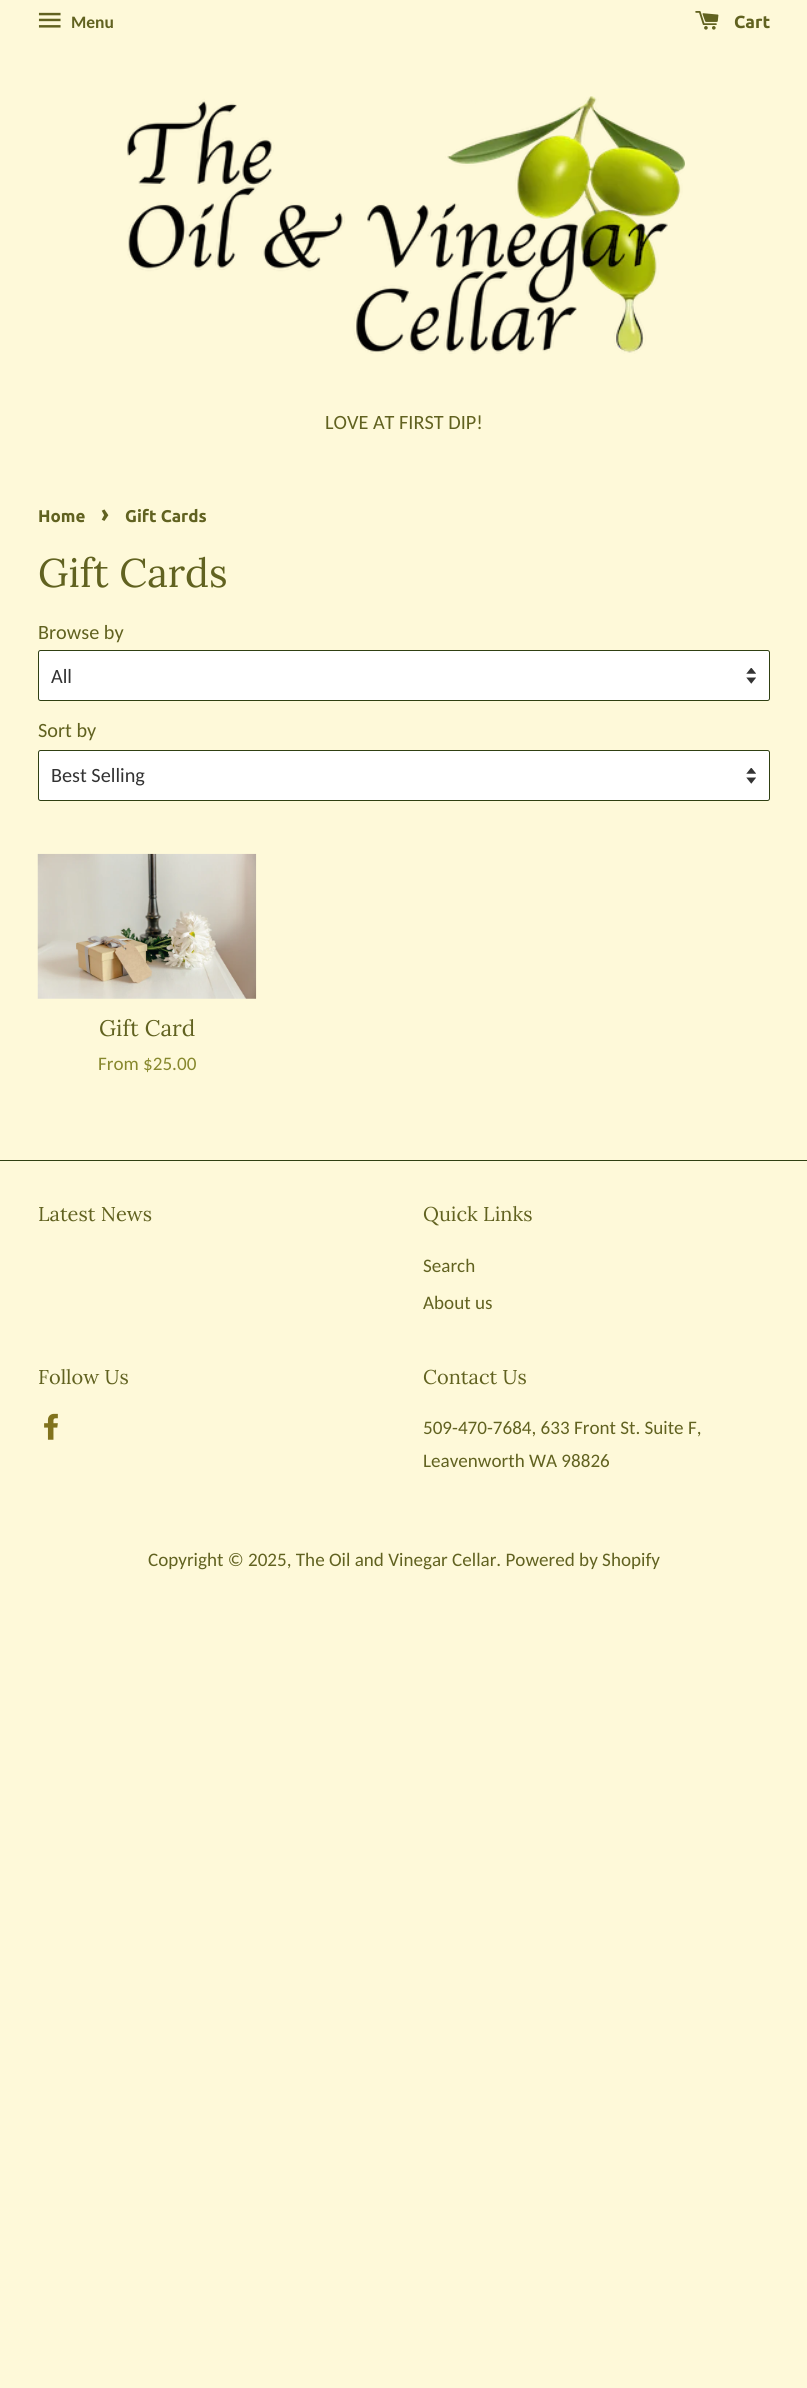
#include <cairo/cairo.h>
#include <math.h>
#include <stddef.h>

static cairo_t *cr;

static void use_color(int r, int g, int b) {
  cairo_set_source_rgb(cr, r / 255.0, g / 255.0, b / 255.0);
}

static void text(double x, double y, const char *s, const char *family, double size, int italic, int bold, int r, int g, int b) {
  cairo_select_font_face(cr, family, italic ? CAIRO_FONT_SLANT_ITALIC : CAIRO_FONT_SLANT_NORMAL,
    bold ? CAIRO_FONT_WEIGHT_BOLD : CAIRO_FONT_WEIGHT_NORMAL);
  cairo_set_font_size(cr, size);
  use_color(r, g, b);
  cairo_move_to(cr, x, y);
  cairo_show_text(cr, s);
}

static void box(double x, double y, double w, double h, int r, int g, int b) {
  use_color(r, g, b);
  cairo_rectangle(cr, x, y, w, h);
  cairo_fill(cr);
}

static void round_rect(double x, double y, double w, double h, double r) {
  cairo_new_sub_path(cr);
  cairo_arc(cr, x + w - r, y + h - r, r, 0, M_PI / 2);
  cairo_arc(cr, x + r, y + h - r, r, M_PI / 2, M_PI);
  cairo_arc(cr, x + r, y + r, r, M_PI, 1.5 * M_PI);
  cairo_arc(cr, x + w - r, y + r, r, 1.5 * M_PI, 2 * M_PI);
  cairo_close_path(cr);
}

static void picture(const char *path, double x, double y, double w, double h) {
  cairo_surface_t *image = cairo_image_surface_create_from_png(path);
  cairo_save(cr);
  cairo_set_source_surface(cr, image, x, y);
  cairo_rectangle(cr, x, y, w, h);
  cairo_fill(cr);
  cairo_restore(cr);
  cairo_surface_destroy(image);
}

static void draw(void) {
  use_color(254, 249, 217);
  cairo_paint(cr);
  picture("img_01.png", 38, 12, 23, 16);
  picture("img_02.png", 695, 11, 24, 19);
  picture("img_03.png", 127, 96, 558, 258);
  use_color(255, 255, 255);
  round_rect(38, 650, 732, 51, 2.5);
  cairo_fill(cr);
  picture("img_04.png", 746, 668, 10, 16);
  round_rect(38.5, 650.5, 731, 50, 2);
  use_color(48, 64, 18);
  cairo_set_line_width(cr, 1);
  cairo_stroke(cr);
  use_color(255, 255, 255);
  round_rect(38, 750, 732, 51, 2.5);
  cairo_fill(cr);
  picture("img_04.png", 746, 768, 10, 16);
  round_rect(38.5, 750.5, 731, 50, 2);
  use_color(48, 64, 18);
  cairo_stroke(cr);
  picture("img_05.png", 37, 853, 220, 146);
  box(0, 1160, 807, 1, 48, 64, 18);
  picture("img_06.png", 44, 1413, 14, 27);
  text(71, 28, "Menu", "Carlito", 17.5, 0, 1, 97, 98, 32);
  text(734, 28, "Cart", "Ubuntu", 17.5, 0, 1, 97, 98, 32);
  text(325, 429, "LOVE AT FIRST DIP!", "Carlito", 20.25, 0, 0, 97, 98, 32);
  text(38, 522, "Home", "Ubuntu", 17, 0, 1, 97, 98, 32);
  text(101, 522, "›", "Ubuntu", 24, 0, 1, 97, 98, 32);
  text(125, 522, "Gift Cards", "Ubuntu", 17, 0, 1, 97, 98, 32);
  text(38, 587, "Gift Cards", "Lora", 40, 0, 0, 97, 98, 32);
  text(38, 639, "Browse by", "Carlito", 20.25, 0, 0, 97, 98, 32);
  text(51, 683, "All", "Carlito", 20.25, 0, 0, 51, 51, 51);
  text(38, 737, "Sort by", "Carlito", 20.25, 0, 0, 97, 98, 32);
  text(51, 782, "Best Selling", "Carlito", 20.25, 0, 0, 51, 51, 51);
  text(99, 1036, "Gift Card", "Lora", 22.5, 0, 0, 97, 98, 32);
  text(98, 1070, "From $25.00", "Carlito", 19.1, 0, 0, 135, 136, 45);
  text(38, 1221, "Latest News", "Lora", 20, 0, 0, 97, 98, 32);
  text(423, 1221, "Quick Links", "Lora", 20, 0, 0, 97, 98, 32);
  text(423, 1272, "Search", "Carlito", 19.1, 0, 0, 97, 98, 32);
  text(423, 1309, "About us", "Carlito", 19.1, 0, 0, 97, 98, 32);
  text(38, 1384, "Follow Us", "Lora", 20, 0, 0, 97, 98, 32);
  text(423, 1384, "Contact Us", "Lora", 20, 0, 0, 97, 98, 32);
  text(423, 1434, "509-470-7684, 633 Front St. Suite F,", "Carlito", 19.1, 0, 0, 97, 98, 32);
  text(423, 1467, "Leavenworth WA 98826", "Carlito", 19.1, 0, 0, 97, 98, 32);
  text(148, 1566, "Copyright © 2025, The Oil and Vinegar Cellar. Powered by Shopify", "Carlito", 19.1, 0, 0, 97, 98, 32);
}

int main(void) {
  cairo_surface_t *surface = cairo_image_surface_create(CAIRO_FORMAT_RGB24, 807, 2388);
  cr = cairo_create(surface);
  cairo_font_options_t *options = cairo_font_options_create();
  cairo_font_options_set_hint_metrics(options, CAIRO_HINT_METRICS_OFF);
  cairo_font_options_set_hint_style(options, CAIRO_HINT_STYLE_NONE);
  cairo_set_font_options(cr, options);
  cairo_set_miter_limit(cr, 4);
  draw();
  cairo_surface_write_to_png(surface, "out.png");
  cairo_font_options_destroy(options);
  cairo_destroy(cr);
  cairo_surface_destroy(surface);
  return 0;
}
